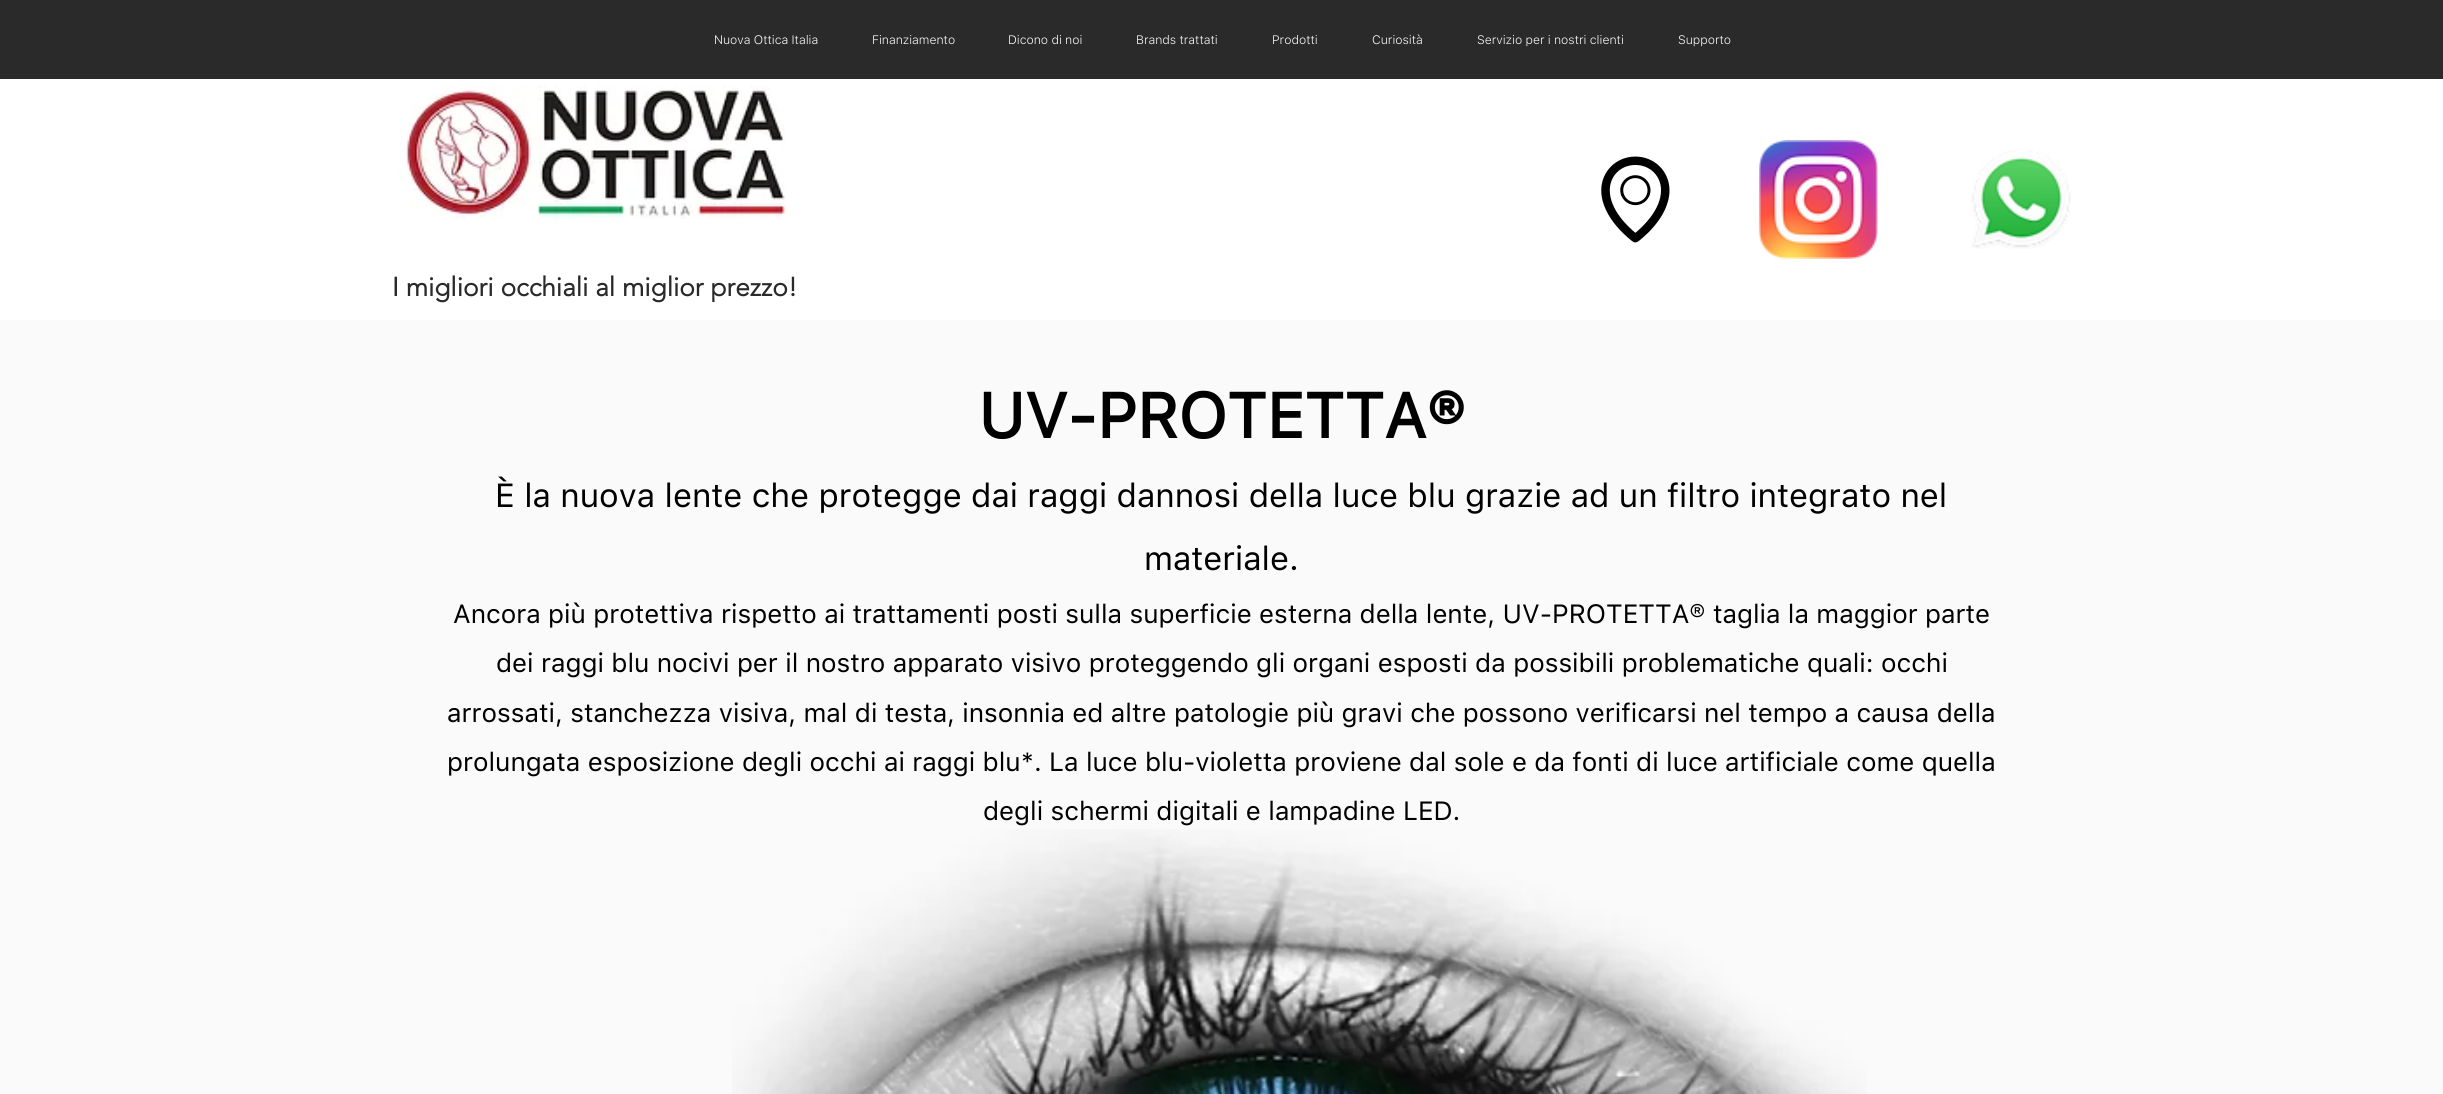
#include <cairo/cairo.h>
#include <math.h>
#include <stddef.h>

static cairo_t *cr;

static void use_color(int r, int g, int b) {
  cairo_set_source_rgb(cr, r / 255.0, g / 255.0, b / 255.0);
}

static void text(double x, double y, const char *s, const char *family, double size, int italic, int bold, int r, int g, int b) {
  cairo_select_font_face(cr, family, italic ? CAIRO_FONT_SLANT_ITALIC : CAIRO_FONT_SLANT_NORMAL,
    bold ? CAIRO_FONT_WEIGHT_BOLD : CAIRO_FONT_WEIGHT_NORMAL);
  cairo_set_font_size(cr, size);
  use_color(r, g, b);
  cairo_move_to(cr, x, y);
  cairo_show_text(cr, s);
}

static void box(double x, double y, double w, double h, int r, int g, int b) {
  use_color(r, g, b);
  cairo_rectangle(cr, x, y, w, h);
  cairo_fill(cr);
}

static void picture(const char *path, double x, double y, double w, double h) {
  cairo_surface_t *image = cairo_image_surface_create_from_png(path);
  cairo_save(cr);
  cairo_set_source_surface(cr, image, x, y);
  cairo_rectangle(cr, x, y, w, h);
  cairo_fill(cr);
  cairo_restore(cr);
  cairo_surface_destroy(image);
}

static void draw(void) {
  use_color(255, 255, 255);
  cairo_paint(cr);
  box(0, 0, 2443, 79, 42, 42, 42);
  picture("img_01.png", 399, 85, 388, 134);
  picture("img_02.png", 1601, 156, 69, 87);
  picture("img_03.png", 1758, 140, 120, 119);
  picture("img_04.png", 1971, 150, 100, 99);
  box(0, 320, 2443, 774, 250, 250, 250);
  picture("img_05.png", 732, 829, 1135, 265);
  text(714, 44, "Nuova Ottica Italia", "SF Pro Text Light", 12.25, 0, 0, 250, 250, 250);
  text(872, 44, "Finanziamento", "SF Pro Text Light", 12.25, 0, 0, 250, 250, 250);
  text(1008, 44, "Dicono di noi", "SF Pro Text Light", 12.25, 0, 0, 250, 250, 250);
  text(1136, 44, "Brands trattati", "SF Pro Text Light", 12.25, 0, 0, 250, 250, 250);
  text(1272, 44, "Prodotti", "SF Pro Text Light", 12.25, 0, 0, 250, 250, 250);
  text(1372, 44, "Curiosità", "SF Pro Text Light", 12.25, 0, 0, 250, 250, 250);
  text(1477, 44, "Servizio per i nostri clienti", "SF Pro Text Light", 12.25, 0, 0, 250, 250, 250);
  text(1678, 44, "Supporto", "SF Pro Text Light", 12.25, 0, 0, 250, 250, 250);
  text(392, 296, "I migliori occhiali al miglior prezzo!", "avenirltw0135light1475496", 26.25, 0, 1, 42, 42, 42);
  text(978, 438, "UV-PROTETTA®", "SF Pro Text", 63, 0, 1, 0, 0, 0);
  text(495, 507, "È la nuova lente che protegge dai raggi dannosi della luce blu grazie ad un filtro integrato nel", "SF Pro Text", 33.25, 0, 0, 0, 0, 0);
  text(1144, 570, "materiale.", "SF Pro Text", 33.25, 0, 0, 0, 0, 0);
  text(453, 623, "Ancora più protettiva rispetto ai trattamenti posti sulla superficie esterna della lente, UV-PROTETTA® taglia la maggior parte", "SF Pro Text", 26.25, 0, 0, 0, 0, 0);
  text(496, 672, "dei raggi blu nocivi per il nostro apparato visivo proteggendo gli organi esposti da possibili problematiche quali: occhi", "SF Pro Text", 26.25, 0, 0, 0, 0, 0);
  text(447, 722, "arrossati, stanchezza visiva, mal di testa, insonnia ed altre patologie più gravi che possono verificarsi nel tempo a causa della", "SF Pro Text", 26.25, 0, 0, 0, 0, 0);
  text(447, 771, "prolungata esposizione degli occhi ai raggi blu*. La luce blu-violetta proviene dal sole e da fonti di luce artificiale come quella", "SF Pro Text", 26.25, 0, 0, 0, 0, 0);
  text(983, 820, "degli schermi digitali e lampadine LED.", "SF Pro Text", 26.25, 0, 0, 0, 0, 0);
}

int main(void) {
  cairo_surface_t *surface = cairo_image_surface_create(CAIRO_FORMAT_RGB24, 2443, 1094);
  cr = cairo_create(surface);
  cairo_font_options_t *options = cairo_font_options_create();
  cairo_font_options_set_hint_metrics(options, CAIRO_HINT_METRICS_OFF);
  cairo_font_options_set_hint_style(options, CAIRO_HINT_STYLE_NONE);
  cairo_set_font_options(cr, options);
  cairo_set_miter_limit(cr, 4);
  draw();
  cairo_surface_write_to_png(surface, "out.png");
  cairo_font_options_destroy(options);
  cairo_destroy(cr);
  cairo_surface_destroy(surface);
  return 0;
}
